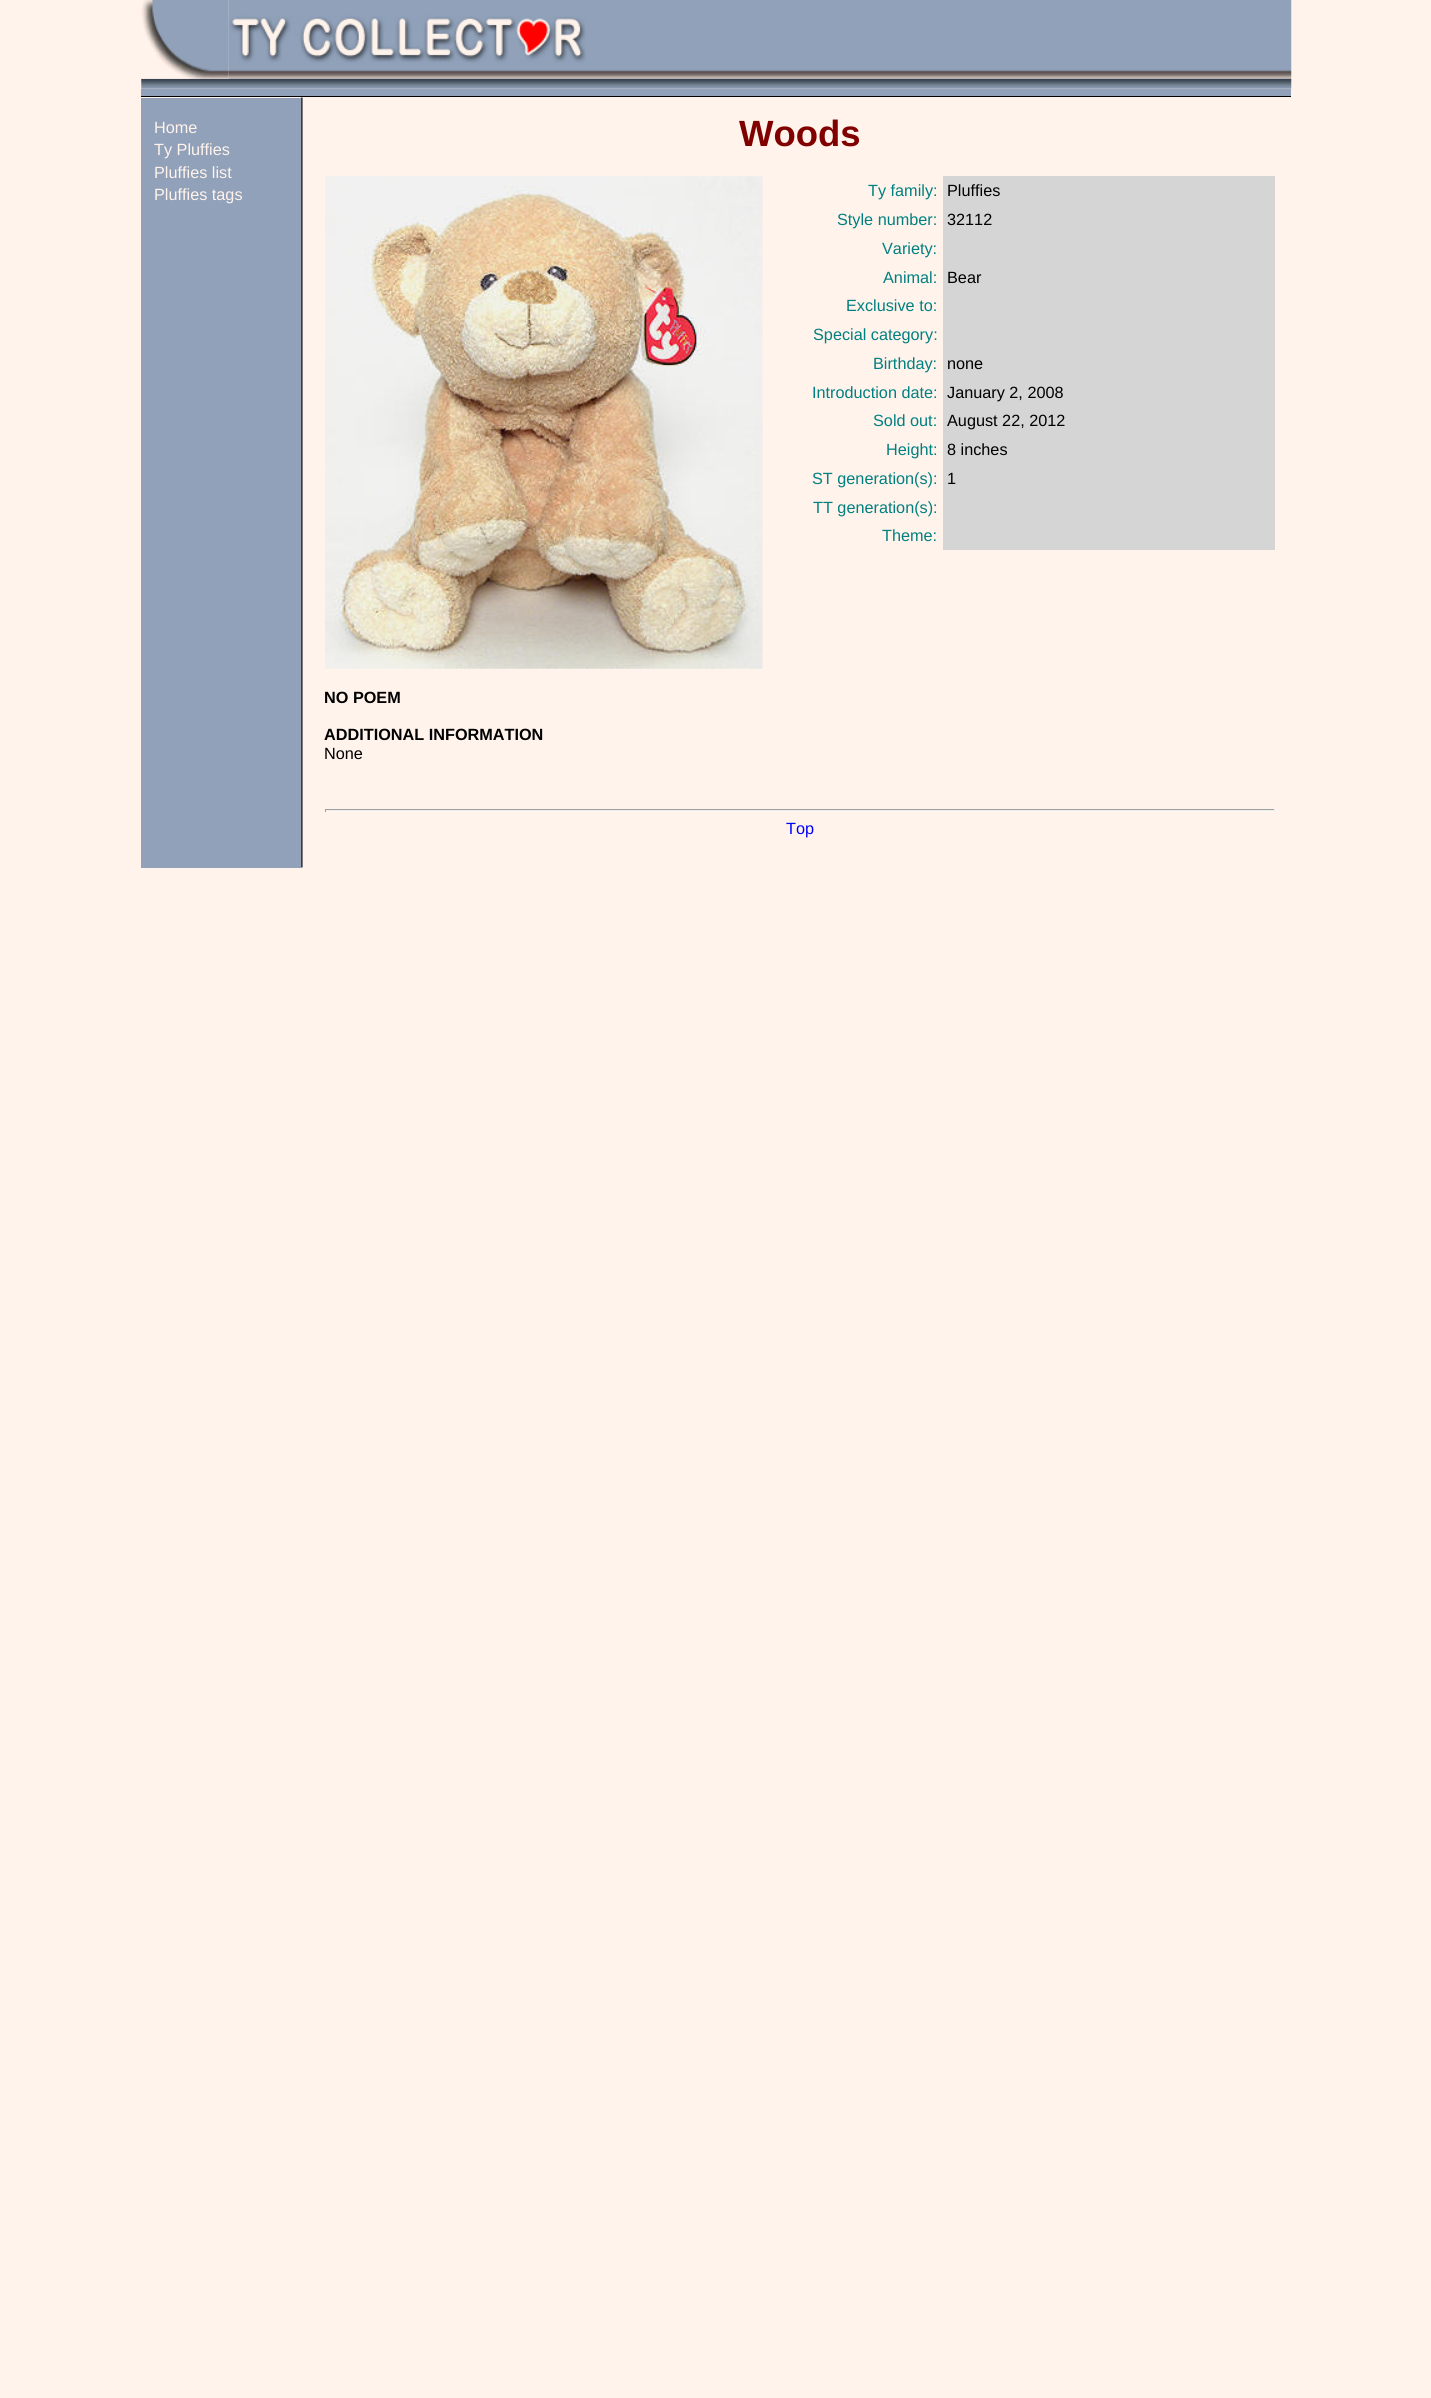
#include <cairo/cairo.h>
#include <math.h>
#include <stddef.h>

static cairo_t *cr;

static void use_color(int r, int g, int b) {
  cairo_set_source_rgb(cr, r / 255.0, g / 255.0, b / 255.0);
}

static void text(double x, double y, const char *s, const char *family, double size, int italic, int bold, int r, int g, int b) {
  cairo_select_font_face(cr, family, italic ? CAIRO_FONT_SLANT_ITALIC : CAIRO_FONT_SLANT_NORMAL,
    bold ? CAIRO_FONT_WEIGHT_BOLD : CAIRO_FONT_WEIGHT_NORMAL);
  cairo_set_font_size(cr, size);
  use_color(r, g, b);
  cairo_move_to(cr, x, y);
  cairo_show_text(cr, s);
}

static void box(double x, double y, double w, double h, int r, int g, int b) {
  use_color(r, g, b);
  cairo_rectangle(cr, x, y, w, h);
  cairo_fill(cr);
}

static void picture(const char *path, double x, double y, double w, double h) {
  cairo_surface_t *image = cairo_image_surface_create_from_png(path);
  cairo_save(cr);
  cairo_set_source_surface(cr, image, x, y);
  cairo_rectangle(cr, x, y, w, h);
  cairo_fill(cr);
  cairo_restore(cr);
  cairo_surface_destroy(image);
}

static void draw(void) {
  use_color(255, 243, 235);
  cairo_paint(cr);
  picture("img_02.png", 228, 0, 1064, 79);
  picture("img_04.png", 141, 78, 1151, 11);
  picture("img_01.png", 141, 0, 88, 79);
  picture("img_03.png", 228, 14, 358, 52);
  box(141, 89, 1150, 7, 144, 161, 185);
  box(141, 96, 1150, 1, 0, 0, 0);
  box(141, 98, 160, 770, 144, 161, 185);
  picture("img_05.png", 301, 97, 2, 771);
  picture("img_06.png", 325, 176, 438, 493);
  box(943, 176, 332, 374, 213, 213, 213);
  box(325, 809, 950, 1, 159, 159, 159);
  box(1274, 809, 1, 3, 238, 238, 238);
  box(325, 810, 950, 1, 238, 238, 238);
  box(325, 809, 1, 3, 159, 159, 159);
  text(154, 133, "Home", "Liberation Sans", 16.25, 0, 0, 255, 243, 235);
  text(154, 155, "Ty Pluffies", "Liberation Sans", 16.25, 0, 0, 255, 243, 235);
  text(154, 178, "Pluffies list", "Liberation Sans", 16.25, 0, 0, 255, 243, 235);
  text(154, 200, "Pluffies tags", "Liberation Sans", 16.25, 0, 0, 255, 243, 235);
  text(739, 146, "Woods", "Liberation Sans", 36.5, 0, 1, 128, 0, 0);
  text(868, 196, "Ty family:", "Liberation Sans", 16.25, 0, 0, 0, 128, 128);
  text(947, 196, "Pluffies", "Liberation Sans", 16.25, 0, 0, 0, 0, 0);
  text(837, 225, "Style number:", "Liberation Sans", 16.25, 0, 0, 0, 128, 128);
  text(947, 225, "32112", "Liberation Sans", 16.25, 0, 0, 0, 0, 0);
  text(882, 254, "Variety:", "Liberation Sans", 16.25, 0, 0, 0, 128, 128);
  text(883, 283, "Animal:", "Liberation Sans", 16.25, 0, 0, 0, 128, 128);
  text(947, 283, "Bear", "Liberation Sans", 16.25, 0, 0, 0, 0, 0);
  text(846, 311, "Exclusive to:", "Liberation Sans", 16.25, 0, 0, 0, 128, 128);
  text(813, 340, "Special category:", "Liberation Sans", 16.25, 0, 0, 0, 128, 128);
  text(873, 369, "Birthday:", "Liberation Sans", 16.25, 0, 0, 0, 128, 128);
  text(947, 369, "none", "Liberation Sans", 16.25, 0, 0, 0, 0, 0);
  text(812, 398, "Introduction date:", "Liberation Sans", 16.25, 0, 0, 0, 128, 128);
  text(947, 398, "January 2, 2008", "Liberation Sans", 16.25, 0, 0, 0, 0, 0);
  text(873, 426, "Sold out:", "Liberation Sans", 16.25, 0, 0, 0, 128, 128);
  text(947, 426, "August 22, 2012", "Liberation Sans", 16.25, 0, 0, 0, 0, 0);
  text(886, 455, "Height:", "Liberation Sans", 16.25, 0, 0, 0, 128, 128);
  text(947, 455, "8 inches", "Liberation Sans", 16.25, 0, 0, 0, 0, 0);
  text(812, 484, "ST generation(s):", "Liberation Sans", 16.25, 0, 0, 0, 128, 128);
  text(947, 484, "1", "Liberation Sans", 16.25, 0, 0, 0, 0, 0);
  text(813, 513, "TT generation(s):", "Liberation Sans", 16.25, 0, 0, 0, 128, 128);
  text(882, 541, "Theme:", "Liberation Sans", 16.25, 0, 0, 0, 128, 128);
  text(324, 703, "NO POEM", "Liberation Sans", 16.25, 0, 1, 0, 0, 0);
  text(324, 740, "ADDITIONAL INFORMATION", "Liberation Sans", 16.25, 0, 1, 0, 0, 0);
  text(324, 759, "None", "Liberation Sans", 16.25, 0, 0, 0, 0, 0);
  text(786, 834, "Top", "Liberation Sans", 16.25, 0, 0, 0, 0, 255);
}

int main(void) {
  cairo_surface_t *surface = cairo_image_surface_create(CAIRO_FORMAT_RGB24, 1431, 2398);
  cr = cairo_create(surface);
  cairo_font_options_t *options = cairo_font_options_create();
  cairo_font_options_set_hint_metrics(options, CAIRO_HINT_METRICS_OFF);
  cairo_font_options_set_hint_style(options, CAIRO_HINT_STYLE_NONE);
  cairo_set_font_options(cr, options);
  cairo_set_miter_limit(cr, 4);
  draw();
  cairo_surface_write_to_png(surface, "out.png");
  cairo_font_options_destroy(options);
  cairo_destroy(cr);
  cairo_surface_destroy(surface);
  return 0;
}
